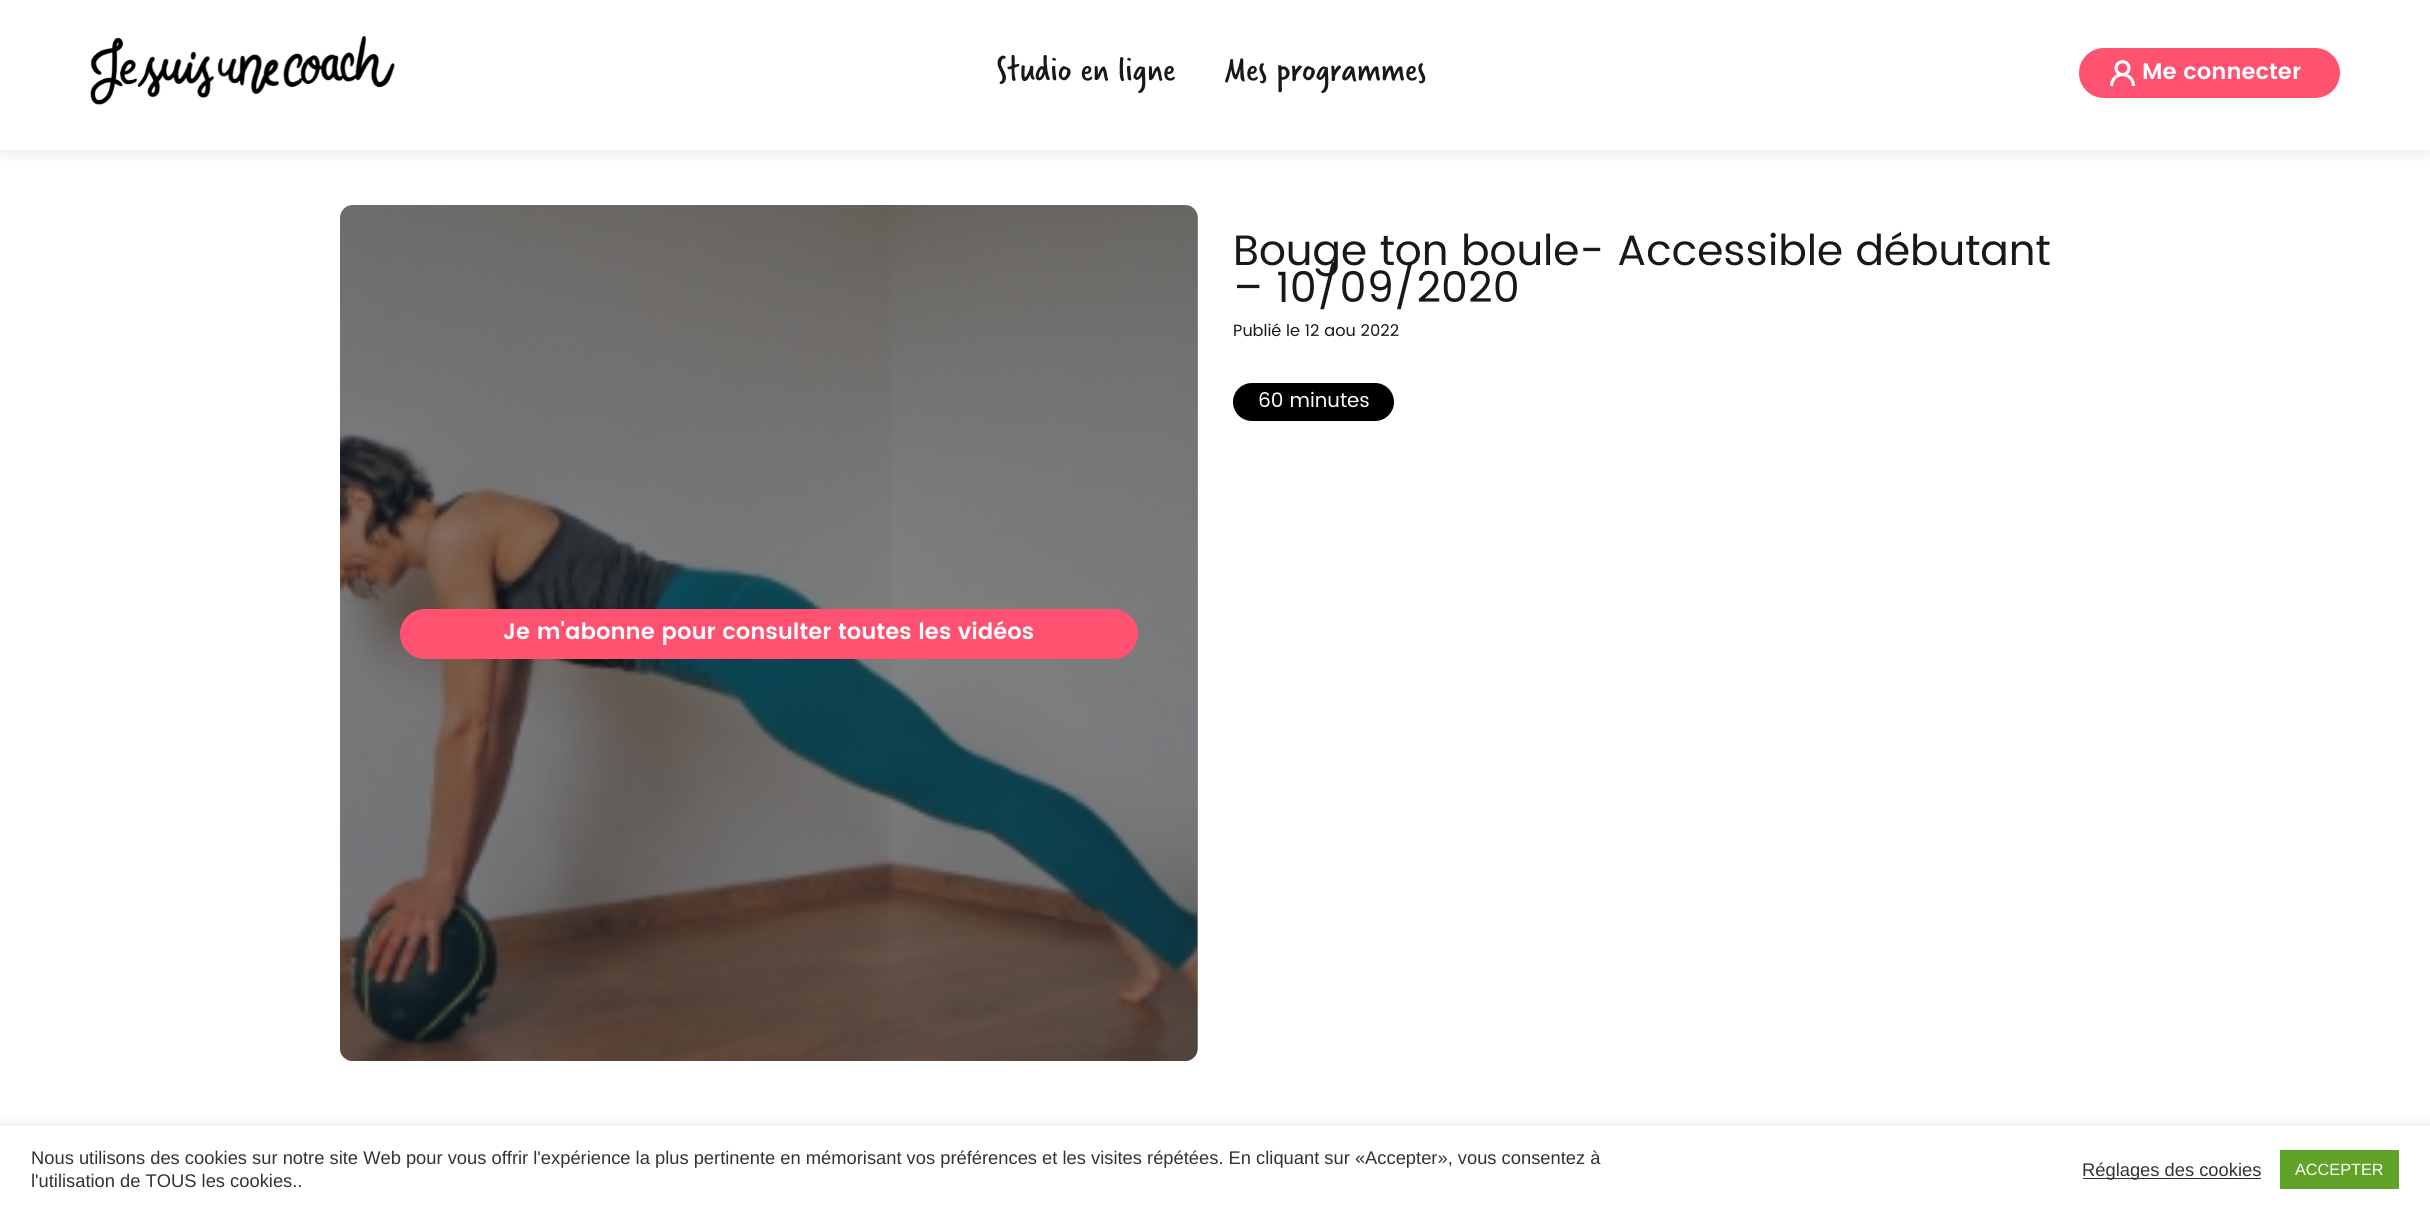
#include <cairo/cairo.h>
#include <math.h>
#include <stddef.h>

static cairo_t *cr;

static void use_color(int r, int g, int b) {
  cairo_set_source_rgb(cr, r / 255.0, g / 255.0, b / 255.0);
}

static void text(double x, double y, const char *s, const char *family, double size, int italic, int bold, int r, int g, int b) {
  cairo_select_font_face(cr, family, italic ? CAIRO_FONT_SLANT_ITALIC : CAIRO_FONT_SLANT_NORMAL,
    bold ? CAIRO_FONT_WEIGHT_BOLD : CAIRO_FONT_WEIGHT_NORMAL);
  cairo_set_font_size(cr, size);
  use_color(r, g, b);
  cairo_move_to(cr, x, y);
  cairo_show_text(cr, s);
}

static void box(double x, double y, double w, double h, int r, int g, int b) {
  use_color(r, g, b);
  cairo_rectangle(cr, x, y, w, h);
  cairo_fill(cr);
}

static void round_rect(double x, double y, double w, double h, double r) {
  cairo_new_sub_path(cr);
  cairo_arc(cr, x + w - r, y + h - r, r, 0, M_PI / 2);
  cairo_arc(cr, x + r, y + h - r, r, M_PI / 2, M_PI);
  cairo_arc(cr, x + r, y + r, r, M_PI, 1.5 * M_PI);
  cairo_arc(cr, x + w - r, y + r, r, 1.5 * M_PI, 2 * M_PI);
  cairo_close_path(cr);
}

static void shadow(double x, double y, double w, double h, double r, double blur, double alpha) {
  cairo_push_group_with_content(cr, CAIRO_CONTENT_ALPHA);
  cairo_set_operator(cr, CAIRO_OPERATOR_SOURCE);
  for (int i = 15; i >= -15 && fmin(w, h) + blur * i / 3 > 0; i -= 2) {
    double e = blur * i / 6;
    cairo_set_source_rgba(cr, 0, 0, 0, alpha * erfc((i - 1) / 8.5) / 2);
    round_rect(x - e, y - e, w + 2 * e, h + 2 * e, fmax(0, fmin(r + e + blur * .6, fmin(w, h) / 2 + e)));
    cairo_fill(cr);
  }
  cairo_pattern_t *soft = cairo_pop_group(cr);
  cairo_mask(cr, soft);
  cairo_pattern_destroy(soft);
}

static void picture(const char *path, double x, double y, double w, double h) {
  cairo_surface_t *image = cairo_image_surface_create_from_png(path);
  cairo_save(cr);
  cairo_set_source_surface(cr, image, x, y);
  cairo_rectangle(cr, x, y, w, h);
  cairo_fill(cr);
  cairo_restore(cr);
  cairo_surface_destroy(image);
}

static void draw(void) {
  use_color(255, 255, 255);
  cairo_paint(cr);
  cairo_save(cr);
  cairo_rectangle(cr, 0, 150, 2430, 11);
  cairo_clip(cr);
  use_color(0, 0, 0);
  shadow(0, 0, 2430, 150, 0, 12.5, 0.1);
  cairo_restore(cr);
  picture("img_01.png", 90, 35, 305, 70);
  use_color(255, 82, 113);
  round_rect(2079, 48, 261, 50, 25);
  cairo_fill(cr);
  picture("img_02.png", 2110, 60, 25, 26);
  use_color(0, 0, 0);
  round_rect(1233, 383, 161, 38, 19);
  cairo_fill(cr);
  picture("img_03.png", 340, 205, 858, 856);
  cairo_set_source_rgba(cr, 0.094, 0.094, 0.094, 0.5);
  round_rect(340, 205, 858, 856, 13);
  cairo_fill(cr);
  use_color(255, 82, 113);
  round_rect(400, 609, 738, 50, 25);
  cairo_fill(cr);
  use_color(172, 171, 171);
  shadow(0, 1125, 2430, 86, 0, 6, 0.3);
  box(0, 1126, 2430, 86, 255, 255, 255);
  box(2083, 1178, 178, 1, 51, 51, 51);
  box(2280, 1150, 119, 39, 97, 162, 41);
  text(996, 80, "Studio en ligne", "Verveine", 37.5, 0, 0, 24, 24, 24);
  text(1225, 80, "Mes programmes", "Verveine", 37.5, 0, 0, 24, 24, 24);
  text(2142, 79, "Me connecter", "Poppins SemiBold", 22.5, 0, 0, 255, 255, 255);
  text(1233, 265, "Bouge ton boule- Accessible débutant", "Poppins", 42.5, 0, 0, 24, 24, 24);
  text(1233, 302, "– 10/09/2020", "Poppins", 42.5, 0, 0, 24, 24, 24);
  text(1233, 336, "Publié le 12 aou 2022", "Poppins", 16.25, 0, 0, 24, 24, 24);
  text(1258, 407, "60 minutes", "Poppins", 20, 0, 0, 255, 255, 255);
  text(503, 639, "Je m'abonne pour consulter toutes les vidéos", "Poppins SemiBold", 22.5, 0, 0, 255, 255, 255);
  text(31, 1164, "Nous utilisons des cookies sur notre site Web pour vous offrir l'expérience la plus pertinente en mémorisant vos préférences et les visites répétées. En cliquant sur «Accepter», vous consentez à", "Liberation Sans", 18.33, 0, 0, 51, 51, 51);
  text(31, 1187, "l'utilisation de TOUS les cookies..", "Liberation Sans", 18.33, 0, 0, 51, 51, 51);
  text(2082, 1176, "Réglages des cookies", "Liberation Sans", 18.33, 0, 0, 51, 51, 51);
  text(2295, 1175, "ACCEPTER", "Liberation Sans", 16.25, 0, 0, 255, 255, 255);
}

int main(void) {
  cairo_surface_t *surface = cairo_image_surface_create(CAIRO_FORMAT_RGB24, 2430, 1212);
  cr = cairo_create(surface);
  cairo_font_options_t *options = cairo_font_options_create();
  cairo_font_options_set_hint_metrics(options, CAIRO_HINT_METRICS_OFF);
  cairo_font_options_set_hint_style(options, CAIRO_HINT_STYLE_NONE);
  cairo_set_font_options(cr, options);
  cairo_set_miter_limit(cr, 4);
  draw();
  cairo_surface_write_to_png(surface, "out.png");
  cairo_font_options_destroy(options);
  cairo_destroy(cr);
  cairo_surface_destroy(surface);
  return 0;
}
